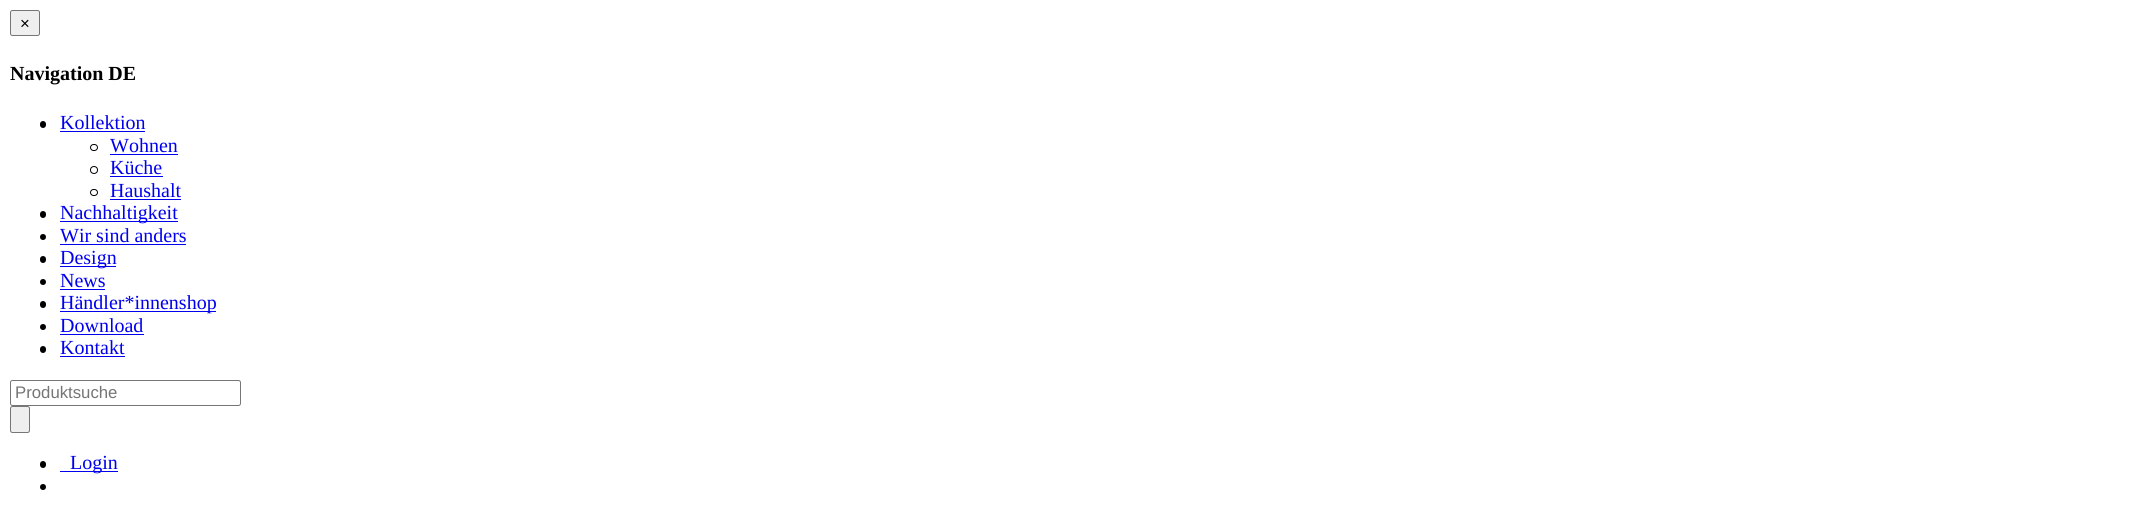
#include <cairo/cairo.h>
#include <math.h>
#include <stddef.h>

static cairo_t *cr;

static void use_color(int r, int g, int b) {
  cairo_set_source_rgb(cr, r / 255.0, g / 255.0, b / 255.0);
}

static void text(double x, double y, const char *s, const char *family, double size, int italic, int bold, int r, int g, int b) {
  cairo_select_font_face(cr, family, italic ? CAIRO_FONT_SLANT_ITALIC : CAIRO_FONT_SLANT_NORMAL,
    bold ? CAIRO_FONT_WEIGHT_BOLD : CAIRO_FONT_WEIGHT_NORMAL);
  cairo_set_font_size(cr, size);
  use_color(r, g, b);
  cairo_move_to(cr, x, y);
  cairo_show_text(cr, s);
}

static void box(double x, double y, double w, double h, int r, int g, int b) {
  use_color(r, g, b);
  cairo_rectangle(cr, x, y, w, h);
  cairo_fill(cr);
}

static void round_rect(double x, double y, double w, double h, double r) {
  cairo_new_sub_path(cr);
  cairo_arc(cr, x + w - r, y + h - r, r, 0, M_PI / 2);
  cairo_arc(cr, x + r, y + h - r, r, M_PI / 2, M_PI);
  cairo_arc(cr, x + r, y + r, r, M_PI, 1.5 * M_PI);
  cairo_arc(cr, x + w - r, y + r, r, 1.5 * M_PI, 2 * M_PI);
  cairo_close_path(cr);
}

static void draw(void) {
  use_color(255, 255, 255);
  cairo_paint(cr);
  use_color(239, 239, 239);
  round_rect(10.5, 10.5, 29, 25, 2);
  cairo_fill_preserve(cr);
  use_color(118, 118, 118);
  cairo_set_line_width(cr, 1);
  cairo_stroke(cr);
  use_color(0, 0, 0);
  round_rect(40, 121, 6, 7, 3);
  cairo_fill(cr);
  box(60, 131, 85, 1, 0, 0, 238);
  round_rect(90.5, 144.5, 7, 6, 3);
  use_color(0, 0, 0);
  cairo_stroke(cr);
  box(110, 154, 68, 1, 0, 0, 238);
  cairo_arc(cr, 94, 170, 3.5, 0, 2 * M_PI);
  use_color(0, 0, 0);
  cairo_stroke(cr);
  box(110, 176, 53, 1, 0, 0, 238);
  round_rect(90.5, 189.5, 7, 6, 3);
  use_color(0, 0, 0);
  cairo_stroke(cr);
  box(110, 199, 71, 1, 0, 0, 238);
  use_color(0, 0, 0);
  round_rect(40, 211, 6, 7, 3);
  cairo_fill(cr);
  box(60, 221, 118, 1, 0, 0, 238);
  use_color(0, 0, 0);
  cairo_arc(cr, 43, 237, 3, 0, 2 * M_PI);
  cairo_fill(cr);
  box(60, 244, 126, 1, 0, 0, 238);
  use_color(0, 0, 0);
  round_rect(40, 256, 6, 7, 3);
  cairo_fill(cr);
  box(60, 266, 56, 1, 0, 0, 238);
  use_color(0, 0, 0);
  cairo_arc(cr, 43, 282, 3, 0, 2 * M_PI);
  cairo_fill(cr);
  box(60, 289, 45, 1, 0, 0, 238);
  use_color(0, 0, 0);
  round_rect(40, 301, 6, 7, 3);
  cairo_fill(cr);
  box(60, 311, 156, 1, 0, 0, 238);
  use_color(0, 0, 0);
  cairo_arc(cr, 43, 327, 3, 0, 2 * M_PI);
  cairo_fill(cr);
  box(60, 334, 84, 1, 0, 0, 238);
  use_color(0, 0, 0);
  round_rect(40, 346, 6, 7, 3);
  cairo_fill(cr);
  box(60, 356, 65, 1, 0, 0, 238);
  round_rect(10.5, 380.5, 230, 25, 2);
  use_color(118, 118, 118);
  cairo_stroke(cr);
  use_color(239, 239, 239);
  round_rect(10.5, 406.5, 19, 26, 2);
  cairo_fill_preserve(cr);
  use_color(118, 118, 118);
  cairo_stroke(cr);
  use_color(0, 0, 0);
  round_rect(40, 461, 6, 7, 3);
  cairo_fill(cr);
  box(60, 471, 58, 1, 0, 0, 238);
  use_color(0, 0, 0);
  cairo_arc(cr, 43, 487, 3, 0, 2 * M_PI);
  cairo_fill(cr);
  text(20, 29, "×", "Liberation Sans", 16.75, 0, 0, 0, 0, 0);
  text(10, 80, "Navigation DE", "Liberation Serif", 20, 0, 1, 0, 0, 0);
  text(60, 129, "Kollektion", "Liberation Serif", 20, 0, 0, 0, 0, 238);
  text(110, 152, "Wohnen", "Liberation Serif", 20, 0, 0, 0, 0, 238);
  text(110, 174, "Küche", "Liberation Serif", 20, 0, 0, 0, 0, 238);
  text(110, 197, "Haushalt", "Liberation Serif", 20, 0, 0, 0, 0, 238);
  text(60, 219, "Nachhaltigkeit", "Liberation Serif", 20, 0, 0, 0, 0, 238);
  text(60, 242, "Wir sind anders", "Liberation Serif", 20, 0, 0, 0, 0, 238);
  text(60, 264, "Design", "Liberation Serif", 20, 0, 0, 0, 0, 238);
  text(60, 287, "News", "Liberation Serif", 20, 0, 0, 0, 0, 238);
  text(60, 309, "Händler*innenshop", "Liberation Serif", 20, 0, 0, 0, 0, 238);
  text(60, 332, "Download", "Liberation Serif", 20, 0, 0, 0, 0, 238);
  text(60, 354, "Kontakt", "Liberation Serif", 20, 0, 0, 0, 0, 238);
  text(15, 398, "Produktsuche", "Liberation Sans", 16.75, 0, 0, 117, 117, 117);
  text(70, 469, "Login", "Liberation Serif", 20, 0, 0, 0, 0, 238);
}

int main(void) {
  cairo_surface_t *surface = cairo_image_surface_create(CAIRO_FORMAT_RGB24, 2148, 524);
  cr = cairo_create(surface);
  cairo_font_options_t *options = cairo_font_options_create();
  cairo_font_options_set_hint_metrics(options, CAIRO_HINT_METRICS_OFF);
  cairo_font_options_set_hint_style(options, CAIRO_HINT_STYLE_NONE);
  cairo_set_font_options(cr, options);
  cairo_set_miter_limit(cr, 4);
  draw();
  cairo_surface_write_to_png(surface, "out.png");
  cairo_font_options_destroy(options);
  cairo_destroy(cr);
  cairo_surface_destroy(surface);
  return 0;
}
